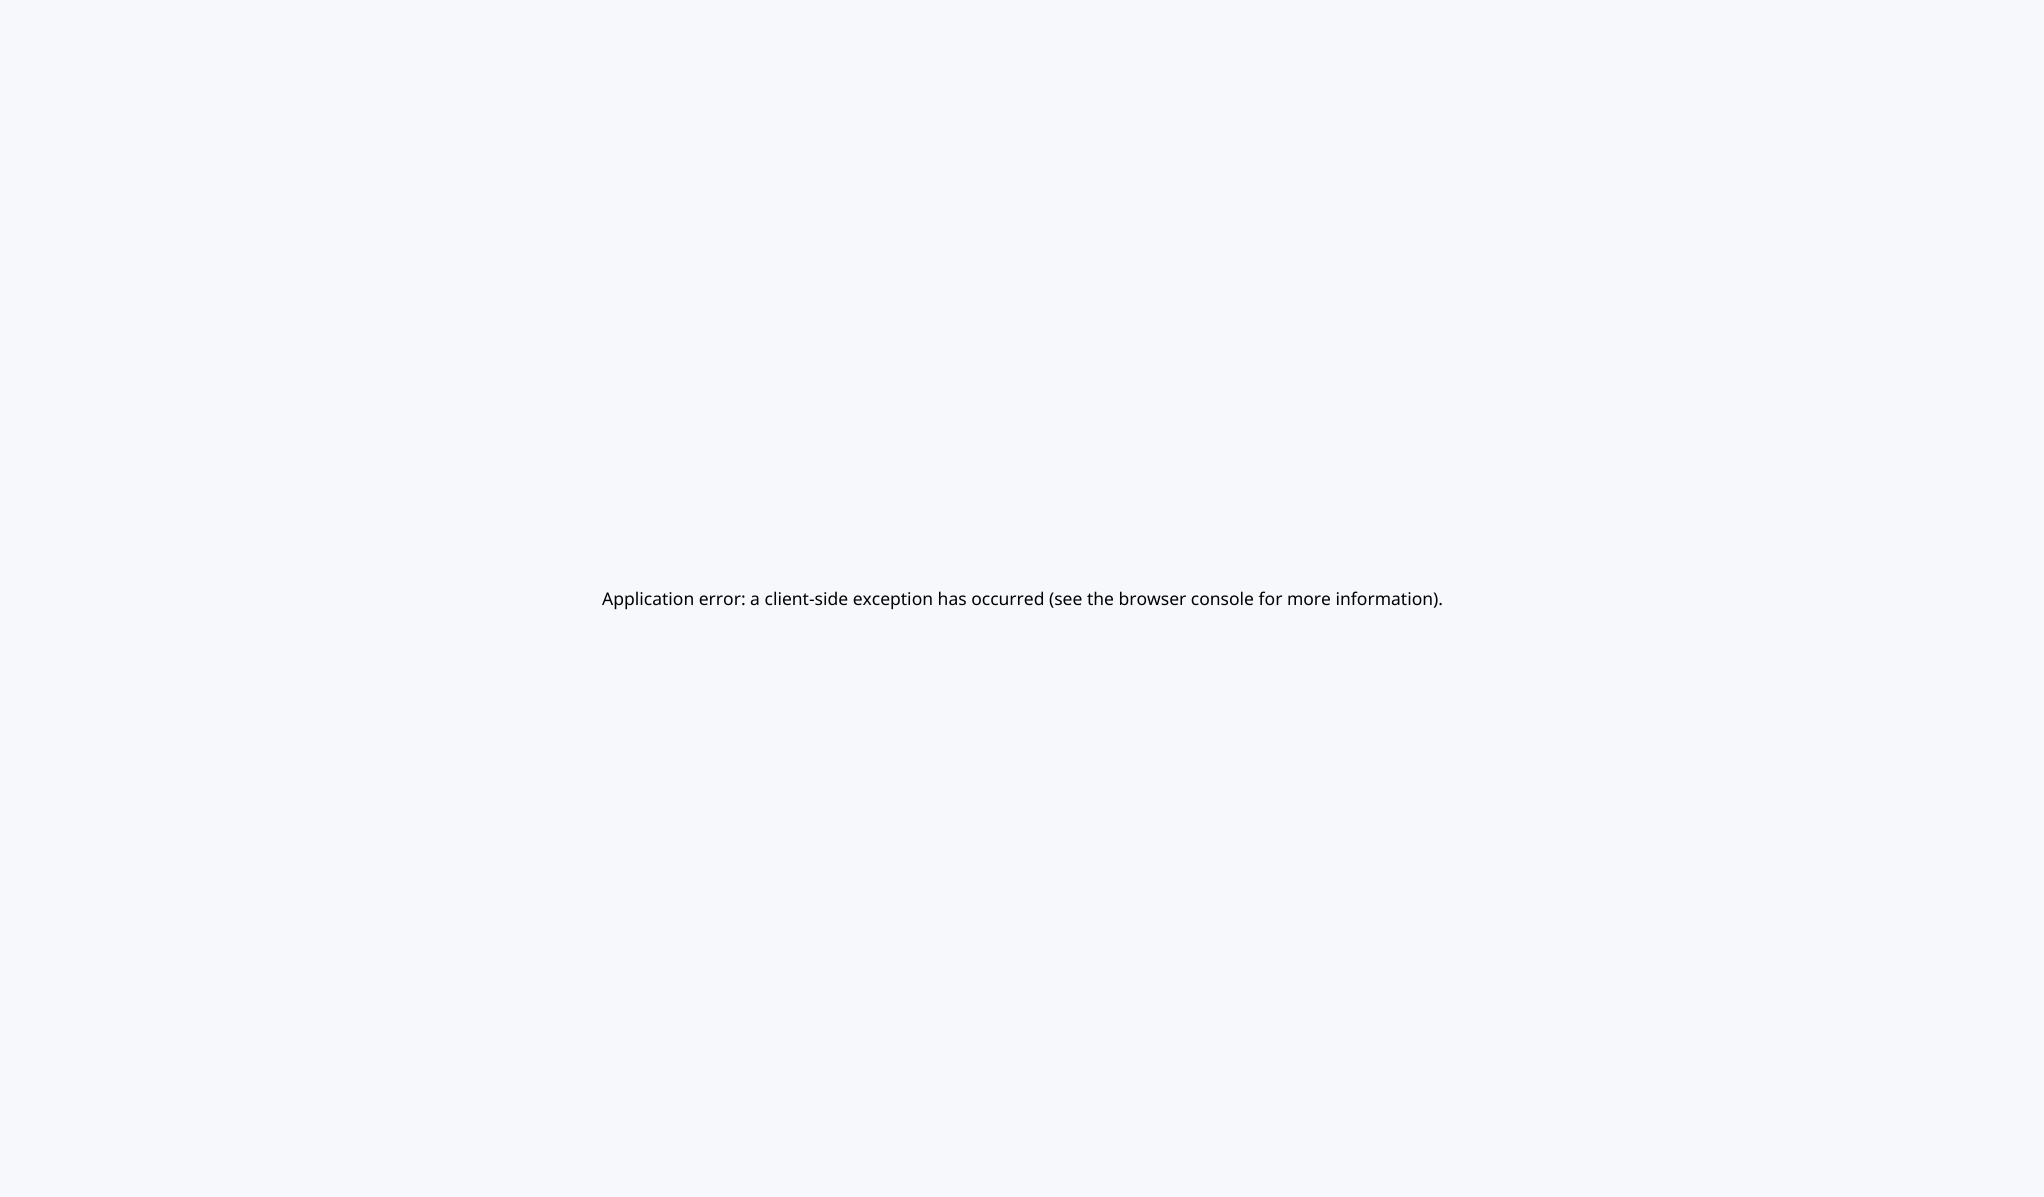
#include <cairo/cairo.h>
#include <math.h>
#include <stddef.h>

static cairo_t *cr;

static void use_color(int r, int g, int b) {
  cairo_set_source_rgb(cr, r / 255.0, g / 255.0, b / 255.0);
}

static void text(double x, double y, const char *s, const char *family, double size, int italic, int bold, int r, int g, int b) {
  cairo_select_font_face(cr, family, italic ? CAIRO_FONT_SLANT_ITALIC : CAIRO_FONT_SLANT_NORMAL,
    bold ? CAIRO_FONT_WEIGHT_BOLD : CAIRO_FONT_WEIGHT_NORMAL);
  cairo_set_font_size(cr, size);
  use_color(r, g, b);
  cairo_move_to(cr, x, y);
  cairo_show_text(cr, s);
}

static void draw(void) {
  use_color(246, 248, 252);
  cairo_paint(cr);
  text(602, 605, "Application error: a client-side exception has occurred (see the browser console for more information).", "Noto Sans", 17.5, 0, 0, 0, 0, 0);
}

int main(void) {
  cairo_surface_t *surface = cairo_image_surface_create(CAIRO_FORMAT_RGB24, 2044, 1197);
  cr = cairo_create(surface);
  cairo_font_options_t *options = cairo_font_options_create();
  cairo_font_options_set_hint_metrics(options, CAIRO_HINT_METRICS_OFF);
  cairo_font_options_set_hint_style(options, CAIRO_HINT_STYLE_NONE);
  cairo_set_font_options(cr, options);
  cairo_set_miter_limit(cr, 4);
  draw();
  cairo_surface_write_to_png(surface, "out.png");
  cairo_font_options_destroy(options);
  cairo_destroy(cr);
  cairo_surface_destroy(surface);
  return 0;
}
